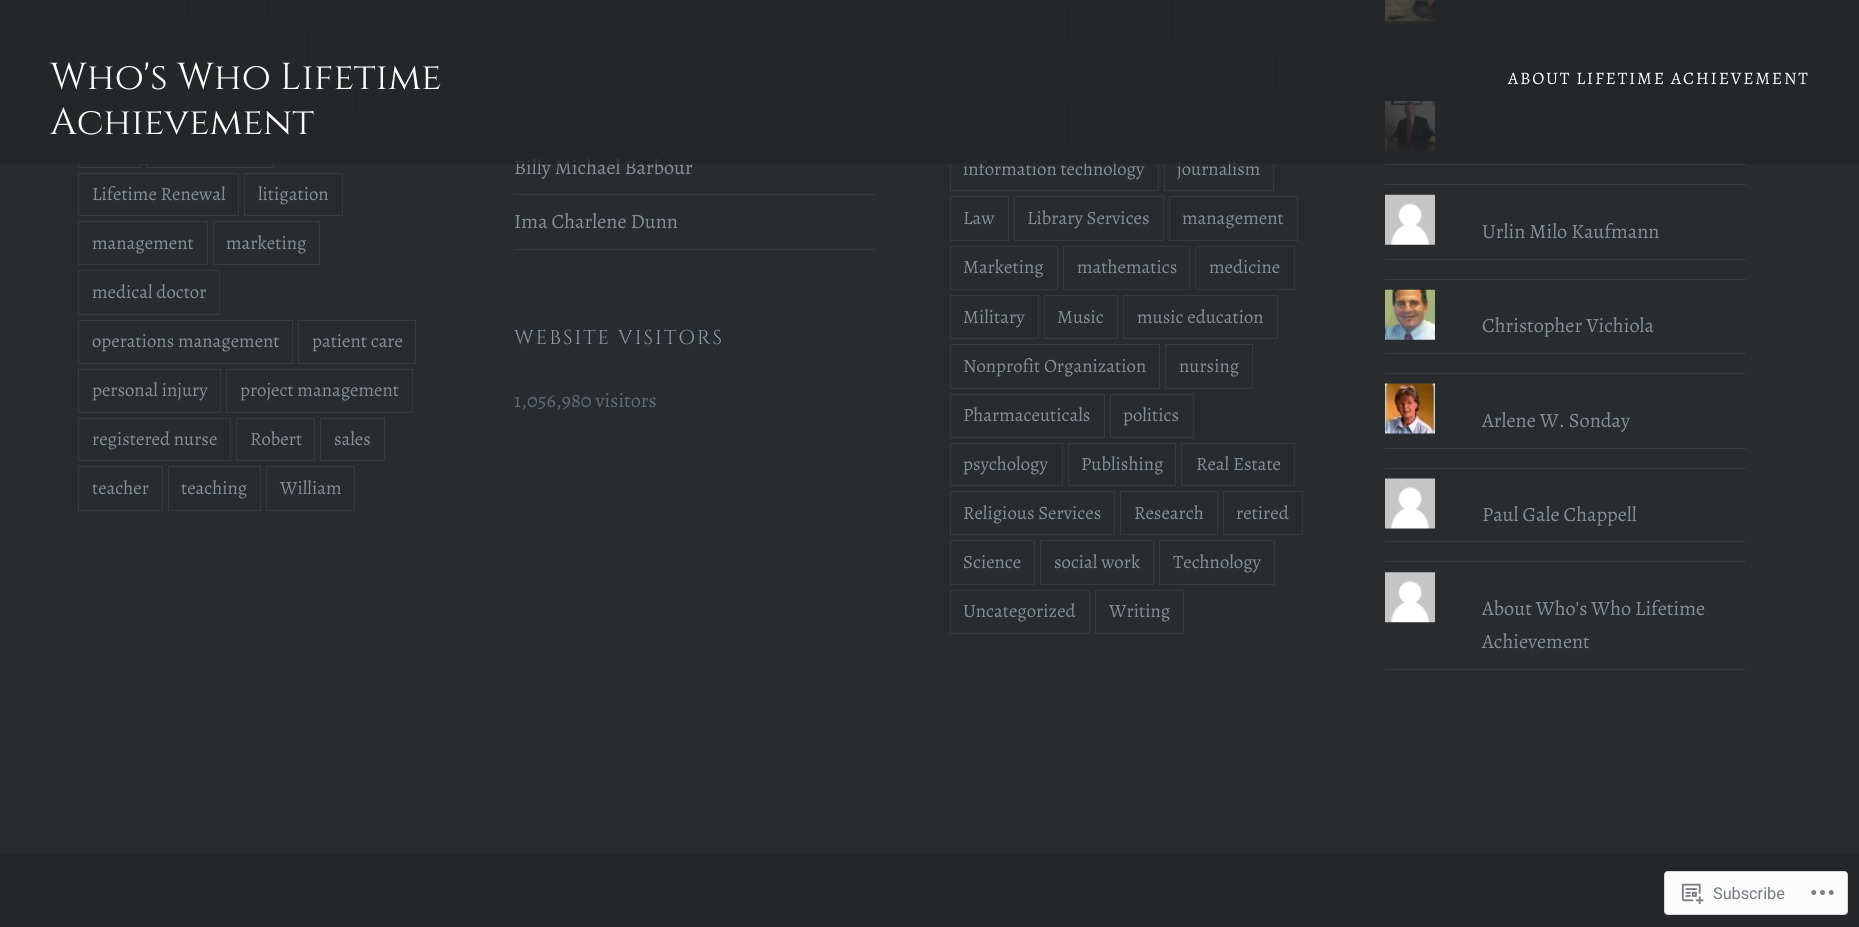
#include <cairo/cairo.h>
#include <math.h>
#include <stddef.h>

static cairo_t *cr;

static void use_color(int r, int g, int b) {
  cairo_set_source_rgb(cr, r / 255.0, g / 255.0, b / 255.0);
}

static void text(double x, double y, const char *s, const char *family, double size, int italic, int bold, int r, int g, int b) {
  cairo_select_font_face(cr, family, italic ? CAIRO_FONT_SLANT_ITALIC : CAIRO_FONT_SLANT_NORMAL,
    bold ? CAIRO_FONT_WEIGHT_BOLD : CAIRO_FONT_WEIGHT_NORMAL);
  cairo_set_font_size(cr, size);
  use_color(r, g, b);
  cairo_move_to(cr, x, y);
  cairo_show_text(cr, s);
}

static void spaced_text(double x, double y, const char *s, double letter, double word) {
  cairo_move_to(cr, x, y);
  while (*s) {
    char ch[5] = {0};
    int n = 0;
    do ch[n++] = *s++; while ((*s & 0xC0) == 0x80);
    cairo_show_text(cr, ch);
    cairo_rel_move_to(cr, letter + word * (*ch == ' '), 0);
  }
}

static void box(double x, double y, double w, double h, int r, int g, int b) {
  use_color(r, g, b);
  cairo_rectangle(cr, x, y, w, h);
  cairo_fill(cr);
}

static void round_rect(double x, double y, double w, double h, double r) {
  cairo_new_sub_path(cr);
  cairo_arc(cr, x + w - r, y + h - r, r, 0, M_PI / 2);
  cairo_arc(cr, x + r, y + h - r, r, M_PI / 2, M_PI);
  cairo_arc(cr, x + r, y + r, r, M_PI, 1.5 * M_PI);
  cairo_arc(cr, x + w - r, y + r, r, 1.5 * M_PI, 2 * M_PI);
  cairo_close_path(cr);
}

static void picture(const char *path, double x, double y, double w, double h) {
  cairo_surface_t *image = cairo_image_surface_create_from_png(path);
  cairo_save(cr);
  cairo_set_source_surface(cr, image, x, y);
  cairo_rectangle(cr, x, y, w, h);
  cairo_fill(cr);
  cairo_restore(cr);
  cairo_surface_destroy(image);
}

static void draw(void) {
  use_color(41, 44, 47);
  cairo_paint(cr);
  cairo_rectangle(cr, 78.5, -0.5, 107, 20);
  use_color(54, 59, 64);
  cairo_set_line_width(cr, 1);
  cairo_stroke(cr);
  cairo_rectangle(cr, 191.5, -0.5, 73, 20);
  cairo_stroke(cr);
  cairo_rectangle(cr, 270.5, -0.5, 103, 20);
  cairo_stroke(cr);
  cairo_rectangle(cr, 78.5, 25.5, 95, 43);
  cairo_stroke(cr);
  cairo_rectangle(cr, 179.5, 25.5, 119, 43);
  cairo_stroke(cr);
  cairo_rectangle(cr, 304.5, 25.5, 105, 43);
  cairo_stroke(cr);
  cairo_rectangle(cr, 78.5, 74.5, 111, 43);
  cairo_stroke(cr);
  cairo_rectangle(cr, 195.5, 74.5, 157, 43);
  cairo_stroke(cr);
  cairo_rectangle(cr, 358.5, 74.5, 56, 43);
  cairo_stroke(cr);
  cairo_rectangle(cr, 78.5, 123.5, 62, 44);
  cairo_stroke(cr);
  cairo_rectangle(cr, 146.5, 123.5, 127, 44);
  cairo_stroke(cr);
  cairo_rectangle(cr, 78.5, 173.5, 160, 42);
  cairo_stroke(cr);
  cairo_rectangle(cr, 244.5, 173.5, 98, 42);
  cairo_stroke(cr);
  cairo_rectangle(cr, 78.5, 221.5, 129, 43);
  cairo_stroke(cr);
  cairo_rectangle(cr, 213.5, 221.5, 106, 43);
  cairo_stroke(cr);
  cairo_rectangle(cr, 78.5, 270.5, 141, 44);
  cairo_stroke(cr);
  cairo_rectangle(cr, 78.5, 320.5, 214, 43);
  cairo_stroke(cr);
  cairo_rectangle(cr, 298.5, 320.5, 117, 43);
  cairo_stroke(cr);
  cairo_rectangle(cr, 78.5, 369.5, 142, 43);
  cairo_stroke(cr);
  cairo_rectangle(cr, 226.5, 369.5, 186, 43);
  cairo_stroke(cr);
  cairo_rectangle(cr, 78.5, 418.5, 152, 42);
  cairo_stroke(cr);
  cairo_rectangle(cr, 236.5, 418.5, 78, 42);
  cairo_stroke(cr);
  cairo_rectangle(cr, 320.5, 418.5, 64, 42);
  cairo_stroke(cr);
  cairo_rectangle(cr, 78.5, 466.5, 84, 44);
  cairo_stroke(cr);
  cairo_rectangle(cr, 168.5, 466.5, 92, 44);
  cairo_stroke(cr);
  cairo_rectangle(cr, 266.5, 466.5, 88, 44);
  cairo_stroke(cr);
  box(514, 33, 361, 1, 54, 59, 64);
  box(514, 86, 361, 1, 54, 59, 64);
  box(514, 140, 361, 1, 54, 59, 64);
  box(514, 194, 361, 1, 54, 59, 64);
  box(514, 249, 361, 1, 54, 59, 64);
  cairo_rectangle(cr, 950.5, 0.5, 108, 44);
  cairo_stroke(cr);
  cairo_rectangle(cr, 1064.5, 0.5, 105, 44);
  cairo_stroke(cr);
  cairo_rectangle(cr, 1175.5, 0.5, 123, 44);
  cairo_stroke(cr);
  cairo_rectangle(cr, 950.5, 50.5, 87, 43);
  cairo_stroke(cr);
  cairo_rectangle(cr, 1043.5, 50.5, 229, 43);
  cairo_stroke(cr);
  cairo_rectangle(cr, 950.5, 99.5, 114, 43);
  cairo_stroke(cr);
  cairo_rectangle(cr, 1070.5, 99.5, 158, 43);
  cairo_stroke(cr);
  cairo_rectangle(cr, 950.5, 148.5, 208, 42);
  cairo_stroke(cr);
  cairo_rectangle(cr, 1164.5, 148.5, 109, 42);
  cairo_stroke(cr);
  cairo_rectangle(cr, 950.5, 196.5, 58, 44);
  cairo_stroke(cr);
  cairo_rectangle(cr, 1014.5, 196.5, 149, 44);
  cairo_stroke(cr);
  cairo_rectangle(cr, 1169.5, 196.5, 128, 44);
  cairo_stroke(cr);
  cairo_rectangle(cr, 950.5, 246.5, 107, 43);
  cairo_stroke(cr);
  cairo_rectangle(cr, 1063.5, 246.5, 126, 43);
  cairo_stroke(cr);
  cairo_rectangle(cr, 1195.5, 246.5, 99, 43);
  cairo_stroke(cr);
  cairo_rectangle(cr, 950.5, 295.5, 88, 43);
  cairo_stroke(cr);
  cairo_rectangle(cr, 1044.5, 295.5, 73, 43);
  cairo_stroke(cr);
  cairo_rectangle(cr, 1123.5, 295.5, 154, 43);
  cairo_stroke(cr);
  cairo_rectangle(cr, 950.5, 344.5, 209, 44);
  cairo_stroke(cr);
  cairo_rectangle(cr, 1165.5, 344.5, 87, 44);
  cairo_stroke(cr);
  cairo_rectangle(cr, 950.5, 394.5, 154, 43);
  cairo_stroke(cr);
  cairo_rectangle(cr, 1110.5, 394.5, 83, 43);
  cairo_stroke(cr);
  cairo_rectangle(cr, 950.5, 443.5, 112, 42);
  cairo_stroke(cr);
  cairo_rectangle(cr, 1068.5, 443.5, 107, 42);
  cairo_stroke(cr);
  cairo_rectangle(cr, 1181.5, 443.5, 113, 42);
  cairo_stroke(cr);
  cairo_rectangle(cr, 950.5, 491.5, 164, 43);
  cairo_stroke(cr);
  cairo_rectangle(cr, 1120.5, 491.5, 97, 43);
  cairo_stroke(cr);
  cairo_rectangle(cr, 1223.5, 491.5, 79, 43);
  cairo_stroke(cr);
  cairo_rectangle(cr, 950.5, 540.5, 84, 44);
  cairo_stroke(cr);
  cairo_rectangle(cr, 1040.5, 540.5, 113, 44);
  cairo_stroke(cr);
  cairo_rectangle(cr, 1159.5, 540.5, 115, 44);
  cairo_stroke(cr);
  cairo_rectangle(cr, 950.5, 590.5, 139, 43);
  cairo_stroke(cr);
  cairo_rectangle(cr, 1095.5, 590.5, 88, 43);
  cairo_stroke(cr);
  box(1385, 70, 361, 1, 54, 59, 64);
  picture("img_01.png", 1385, 0, 50, 24);
  box(1385, 90, 361, 1, 54, 59, 64);
  box(1385, 164, 361, 1, 54, 59, 64);
  picture("img_02.png", 1385, 101, 50, 50);
  box(1385, 184, 361, 1, 54, 59, 64);
  box(1385, 259, 361, 1, 54, 59, 64);
  picture("img_03.png", 1385, 194, 50, 51);
  box(1385, 279, 361, 1, 54, 59, 64);
  box(1385, 353, 361, 1, 54, 59, 64);
  picture("img_04.png", 1385, 289, 50, 51);
  box(1385, 373, 361, 1, 54, 59, 64);
  box(1385, 448, 361, 1, 54, 59, 64);
  picture("img_05.png", 1385, 383, 50, 51);
  box(1385, 468, 361, 1, 54, 59, 64);
  box(1385, 541, 361, 1, 54, 59, 64);
  picture("img_06.png", 1385, 478, 50, 51);
  box(1385, 561, 361, 1, 54, 59, 64);
  box(1385, 669, 361, 1, 54, 59, 64);
  picture("img_07.png", 1385, 572, 50, 51);
  box(0, 853, 1859, 74, 36, 38, 41);
  use_color(251, 251, 251);
  round_rect(1664.5, 871.5, 183, 43, 3.5);
  cairo_fill_preserve(cr);
  use_color(216, 216, 218);
  cairo_stroke(cr);
  picture("img_08.png", 1681, 883, 23, 22);
  picture("img_09.png", 1811, 890, 23, 5);
  text(92, 200, "Lifetime Renewal", "Alegreya", 18.75, 0, 0, 133, 141, 149);
  text(258, 200, "litigation", "Alegreya", 18.75, 0, 0, 133, 141, 149);
  text(92, 249, "management", "Alegreya", 18.75, 0, 0, 133, 141, 149);
  text(226, 249, "marketing", "Alegreya", 18.75, 0, 0, 133, 141, 149);
  text(92, 298, "medical doctor", "Alegreya", 18.75, 0, 0, 133, 141, 149);
  text(92, 347, "operations management", "Alegreya", 18.75, 0, 0, 133, 141, 149);
  text(312, 347, "patient care", "Alegreya", 18.75, 0, 0, 133, 141, 149);
  text(92, 396, "personal injury", "Alegreya", 18.75, 0, 0, 133, 141, 149);
  text(240, 396, "project management", "Alegreya", 18.75, 0, 0, 133, 141, 149);
  text(92, 445, "registered nurse", "Alegreya", 18.75, 0, 0, 133, 141, 149);
  text(250, 445, "Robert", "Alegreya", 18.75, 0, 0, 133, 141, 149);
  text(334, 445, "sales", "Alegreya", 18.75, 0, 0, 133, 141, 149);
  text(92, 494, "teacher", "Alegreya", 18.75, 0, 0, 133, 141, 149);
  text(181, 494, "teaching", "Alegreya", 18.75, 0, 0, 133, 141, 149);
  text(280, 494, "William", "Alegreya", 18.75, 0, 0, 133, 141, 149);
  text(514, 174, "Billy Michael Barbour", "Alegreya", 20.25, 0, 0, 133, 141, 149);
  text(514, 228, "Ima Charlene Dunn", "Alegreya", 20.25, 0, 0, 133, 141, 149);
  text(963, 175, "information technology", "Alegreya", 18.75, 0, 0, 133, 141, 149);
  text(1177, 175, "journalism", "Alegreya", 18.75, 0, 0, 133, 141, 149);
  cairo_set_source_rgba(cr, 0.141, 0.149, 0.161, 0.8);
  cairo_rectangle(cr, 0, 0, 1859, 164);
  cairo_fill(cr);
  cairo_set_font_size(cr, 17.5);
  use_color(255, 255, 255);
  spaced_text(1508, 84, "ABOUT LIFETIME ACHIEVEMENT", 1.75, 0);
  text(50, 134, "Achievement", "Cinzel", 37.5, 0, 0, 255, 255, 255);
  text(50, 89, "Who's Who Lifetime", "Cinzel", 37.5, 0, 0, 255, 255, 255);
  text(963, 224, "Law", "Alegreya", 18.75, 0, 0, 133, 141, 149);
  text(1027, 224, "Library Services", "Alegreya", 18.75, 0, 0, 133, 141, 149);
  text(1182, 224, "management", "Alegreya", 18.75, 0, 0, 133, 141, 149);
  text(963, 273, "Marketing", "Alegreya", 18.75, 0, 0, 133, 141, 149);
  text(1077, 273, "mathematics", "Alegreya", 18.75, 0, 0, 133, 141, 149);
  text(1209, 273, "medicine", "Alegreya", 18.75, 0, 0, 133, 141, 149);
  text(963, 323, "Military", "Alegreya", 18.75, 0, 0, 133, 141, 149);
  text(1057, 323, "Music", "Alegreya", 18.75, 0, 0, 133, 141, 149);
  text(1137, 323, "music education", "Alegreya", 18.75, 0, 0, 133, 141, 149);
  text(963, 372, "Nonprofit Organization", "Alegreya", 18.75, 0, 0, 133, 141, 149);
  text(1179, 372, "nursing", "Alegreya", 18.75, 0, 0, 133, 141, 149);
  text(963, 421, "Pharmaceuticals", "Alegreya", 18.75, 0, 0, 133, 141, 149);
  text(1123, 421, "politics", "Alegreya", 18.75, 0, 0, 133, 141, 149);
  text(963, 470, "psychology", "Alegreya", 18.75, 0, 0, 133, 141, 149);
  text(1081, 470, "Publishing", "Alegreya", 18.75, 0, 0, 133, 141, 149);
  text(1196, 470, "Real Estate", "Alegreya", 18.75, 0, 0, 133, 141, 149);
  text(963, 519, "Religious Services", "Alegreya", 18.75, 0, 0, 133, 141, 149);
  text(1134, 519, "Research", "Alegreya", 18.75, 0, 0, 133, 141, 149);
  text(1236, 519, "retired", "Alegreya", 18.75, 0, 0, 133, 141, 149);
  text(963, 568, "Science", "Alegreya", 18.75, 0, 0, 133, 141, 149);
  text(1054, 568, "social work", "Alegreya", 18.75, 0, 0, 133, 141, 149);
  text(1173, 568, "Technology", "Alegreya", 18.75, 0, 0, 133, 141, 149);
  text(963, 617, "Uncategorized", "Alegreya", 18.75, 0, 0, 133, 141, 149);
  text(1109, 617, "Writing", "Alegreya", 18.75, 0, 0, 133, 141, 149);
  text(1482, 238, "Urlin Milo Kaufmann", "Alegreya", 20.25, 0, 0, 133, 141, 149);
  text(1482, 332, "Christopher Vichiola", "Alegreya", 20.25, 0, 0, 133, 141, 149);
  text(1482, 427, "Arlene W. Sonday", "Alegreya", 20.25, 0, 0, 133, 141, 149);
  text(1482, 521, "Paul Gale Chappell", "Alegreya", 20.25, 0, 0, 133, 141, 149);
  text(1482, 615, "About Who's Who Lifetime", "Alegreya", 20.25, 0, 0, 133, 141, 149);
  text(1482, 648, "Achievement", "Alegreya", 20.25, 0, 0, 133, 141, 149);
  cairo_select_font_face(cr, "Cinzel", CAIRO_FONT_SLANT_NORMAL, CAIRO_FONT_WEIGHT_NORMAL);
  cairo_set_font_size(cr, 20);
  use_color(140, 151, 162);
  spaced_text(514, 344, "WEBSITE VISITORS", 2, 0);
  text(514, 407, "1,056,980 visitors", "Alegreya", 20.25, 0, 0, 97, 106, 116);
  text(1713, 899, "Subscribe", "Roboto", 16.25, 0, 0, 118, 122, 128);
}

int main(void) {
  cairo_surface_t *surface = cairo_image_surface_create(CAIRO_FORMAT_RGB24, 1859, 927);
  cr = cairo_create(surface);
  cairo_font_options_t *options = cairo_font_options_create();
  cairo_font_options_set_hint_metrics(options, CAIRO_HINT_METRICS_OFF);
  cairo_font_options_set_hint_style(options, CAIRO_HINT_STYLE_NONE);
  cairo_set_font_options(cr, options);
  cairo_set_miter_limit(cr, 4);
  draw();
  cairo_surface_write_to_png(surface, "out.png");
  cairo_font_options_destroy(options);
  cairo_destroy(cr);
  cairo_surface_destroy(surface);
  return 0;
}
